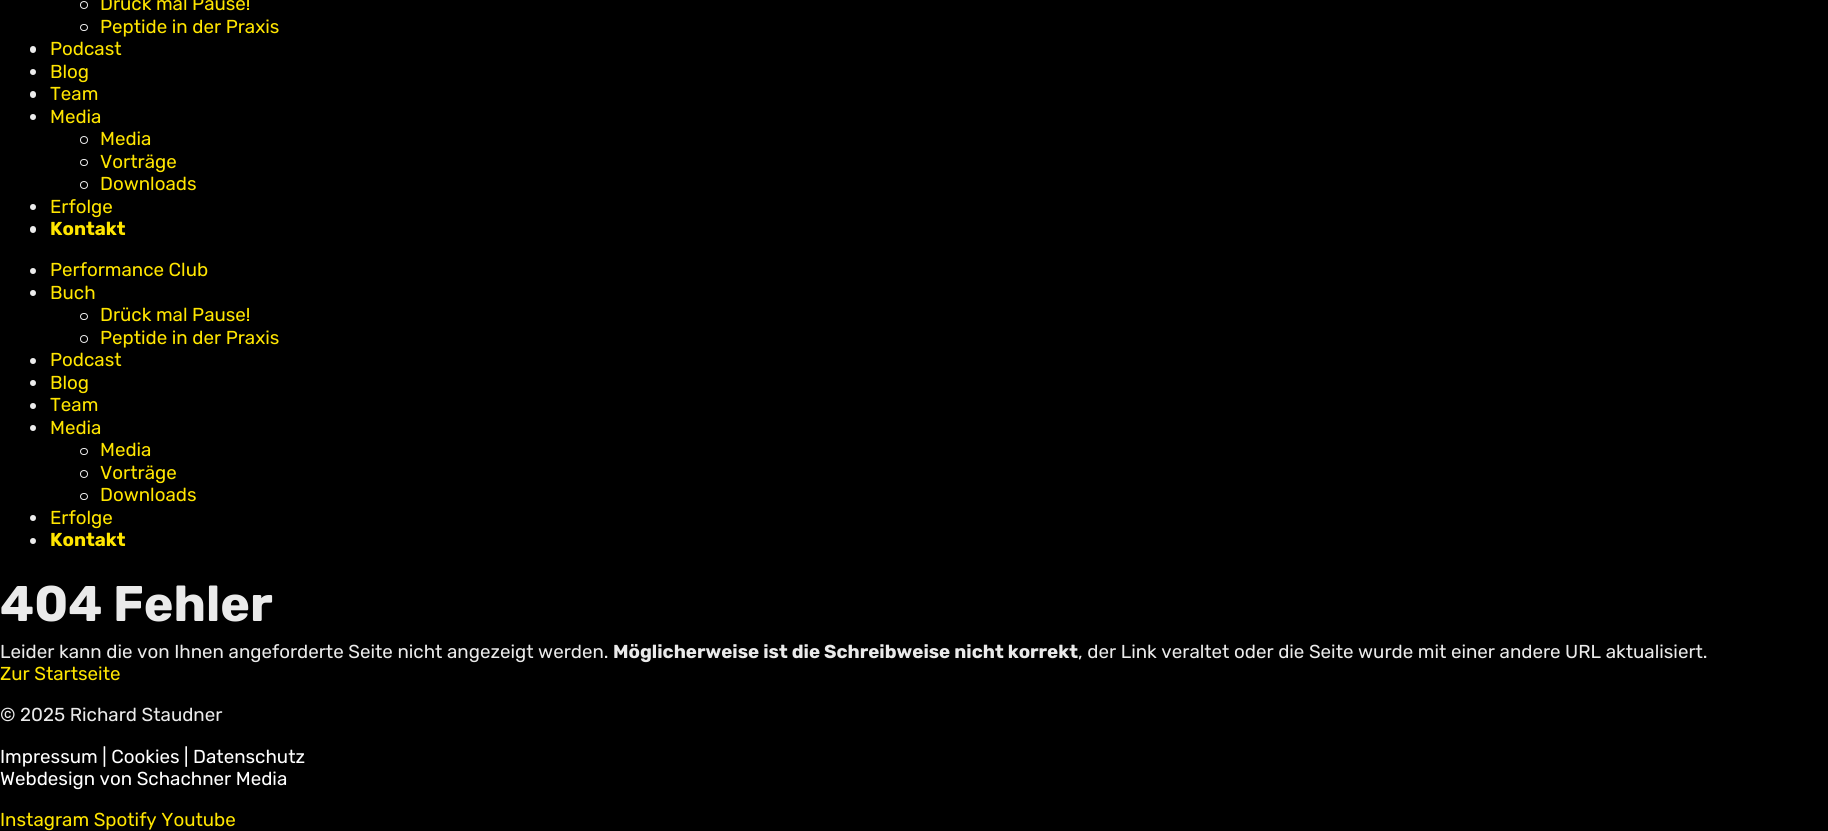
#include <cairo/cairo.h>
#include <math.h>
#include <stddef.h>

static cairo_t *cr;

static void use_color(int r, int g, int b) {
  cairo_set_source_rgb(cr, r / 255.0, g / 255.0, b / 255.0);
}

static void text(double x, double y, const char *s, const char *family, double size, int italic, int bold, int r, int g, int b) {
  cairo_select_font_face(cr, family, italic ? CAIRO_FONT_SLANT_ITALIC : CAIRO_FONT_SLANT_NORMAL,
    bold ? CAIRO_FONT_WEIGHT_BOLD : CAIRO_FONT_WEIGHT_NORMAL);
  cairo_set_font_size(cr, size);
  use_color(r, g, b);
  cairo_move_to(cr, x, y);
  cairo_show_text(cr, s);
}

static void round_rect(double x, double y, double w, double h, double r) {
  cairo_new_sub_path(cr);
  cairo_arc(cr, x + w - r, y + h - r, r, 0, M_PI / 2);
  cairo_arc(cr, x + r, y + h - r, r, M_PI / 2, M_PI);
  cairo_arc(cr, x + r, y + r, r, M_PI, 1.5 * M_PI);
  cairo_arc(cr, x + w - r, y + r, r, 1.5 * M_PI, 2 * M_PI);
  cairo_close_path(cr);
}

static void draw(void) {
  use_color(0, 0, 0);
  cairo_paint(cr);
  cairo_arc(cr, 84, 5, 3.5, 0, 2 * M_PI);
  use_color(236, 236, 236);
  cairo_set_line_width(cr, 1);
  cairo_stroke(cr);
  round_rect(80.5, 24.5, 7, 6, 3);
  cairo_stroke(cr);
  round_rect(30, 46, 6, 7, 3);
  cairo_fill(cr);
  cairo_arc(cr, 33, 72, 3, 0, 2 * M_PI);
  cairo_fill(cr);
  round_rect(30, 91, 6, 7, 3);
  cairo_fill(cr);
  cairo_arc(cr, 33, 117, 3, 0, 2 * M_PI);
  cairo_fill(cr);
  cairo_arc(cr, 84, 140, 3.5, 0, 2 * M_PI);
  cairo_stroke(cr);
  round_rect(80.5, 159.5, 7, 6, 3);
  cairo_stroke(cr);
  cairo_arc(cr, 84, 185, 3.5, 0, 2 * M_PI);
  cairo_stroke(cr);
  cairo_arc(cr, 33, 207, 3, 0, 2 * M_PI);
  cairo_fill(cr);
  round_rect(30, 226, 6, 7, 3);
  cairo_fill(cr);
  cairo_arc(cr, 33, 271, 3, 0, 2 * M_PI);
  cairo_fill(cr);
  cairo_arc(cr, 33, 293, 3, 0, 2 * M_PI);
  cairo_fill(cr);
  round_rect(80.5, 313.5, 7, 6, 3);
  cairo_stroke(cr);
  cairo_arc(cr, 84, 339, 3.5, 0, 2 * M_PI);
  cairo_stroke(cr);
  cairo_arc(cr, 33, 361, 3, 0, 2 * M_PI);
  cairo_fill(cr);
  cairo_arc(cr, 33, 383, 3, 0, 2 * M_PI);
  cairo_fill(cr);
  cairo_arc(cr, 33, 406, 3, 0, 2 * M_PI);
  cairo_fill(cr);
  cairo_arc(cr, 33, 428, 3, 0, 2 * M_PI);
  cairo_fill(cr);
  round_rect(80.5, 448.5, 7, 6, 3);
  cairo_stroke(cr);
  cairo_arc(cr, 84, 474, 3.5, 0, 2 * M_PI);
  cairo_stroke(cr);
  round_rect(80.5, 493.5, 7, 6, 3);
  cairo_stroke(cr);
  cairo_arc(cr, 33, 518, 3, 0, 2 * M_PI);
  cairo_fill(cr);
  cairo_arc(cr, 33, 541, 3, 0, 2 * M_PI);
  cairo_fill(cr);
  text(100, 10, "Drück mal Pause!", "Rubik", 18.75, 0, 0, 255, 229, 0);
  text(100, 33, "Peptide in der Praxis", "Rubik", 18.75, 0, 0, 255, 229, 0);
  text(50, 55, "Podcast", "Rubik", 18.75, 0, 0, 255, 229, 0);
  text(50, 78, "Blog", "Rubik", 18.75, 0, 0, 255, 229, 0);
  text(50, 100, "Team", "Rubik", 18.75, 0, 0, 255, 229, 0);
  text(50, 123, "Media", "Rubik", 18.75, 0, 0, 255, 229, 0);
  text(100, 145, "Media", "Rubik", 18.75, 0, 0, 255, 229, 0);
  text(100, 168, "Vorträge", "Rubik", 18.75, 0, 0, 255, 229, 0);
  text(100, 190, "Downloads", "Rubik", 18.75, 0, 0, 255, 229, 0);
  text(50, 213, "Erfolge", "Rubik", 18.75, 0, 0, 255, 229, 0);
  text(50, 235, "Kontakt", "Rubik", 18.75, 0, 1, 255, 229, 0);
  text(50, 276, "Performance Club", "Rubik", 18.75, 0, 0, 255, 229, 0);
  text(50, 299, "Buch", "Rubik", 18.75, 0, 0, 255, 229, 0);
  text(100, 321, "Drück mal Pause!", "Rubik", 18.75, 0, 0, 255, 229, 0);
  text(100, 344, "Peptide in der Praxis", "Rubik", 18.75, 0, 0, 255, 229, 0);
  text(50, 366, "Podcast", "Rubik", 18.75, 0, 0, 255, 229, 0);
  text(50, 389, "Blog", "Rubik", 18.75, 0, 0, 255, 229, 0);
  text(50, 411, "Team", "Rubik", 18.75, 0, 0, 255, 229, 0);
  text(50, 434, "Media", "Rubik", 18.75, 0, 0, 255, 229, 0);
  text(100, 456, "Media", "Rubik", 18.75, 0, 0, 255, 229, 0);
  text(100, 479, "Vorträge", "Rubik", 18.75, 0, 0, 255, 229, 0);
  text(100, 501, "Downloads", "Rubik", 18.75, 0, 0, 255, 229, 0);
  text(50, 524, "Erfolge", "Rubik", 18.75, 0, 0, 255, 229, 0);
  text(50, 546, "Kontakt", "Rubik", 18.75, 0, 1, 255, 229, 0);
  text(0, 621, "404 Fehler", "Rubik", 50, 0, 1, 234, 234, 234);
  text(0, 658, "Leider kann die von Ihnen angeforderte Seite nicht angezeigt werden.", "Rubik", 18.75, 0, 0, 234, 234, 234);
  text(613, 658, "Möglicherweise ist die Schreibweise nicht korrekt", "Rubik", 18.75, 0, 1, 234, 234, 234);
  text(1078, 658, ", der Link veraltet oder die Seite wurde mit einer andere URL aktualisiert.", "Rubik", 18.75, 0, 0, 234, 234, 234);
  text(0, 680, "Zur Startseite", "Rubik", 18.75, 0, 0, 255, 229, 0);
  text(0, 721, "© 2025 Richard Staudner", "Rubik", 18.75, 0, 0, 234, 234, 234);
  text(0, 763, "Impressum | Cookies | Datenschutz", "Rubik", 18.75, 0, 0, 255, 255, 255);
  text(0, 785, "Webdesign von Schachner Media", "Rubik", 18.75, 0, 0, 255, 255, 255);
  text(0, 826, "Instagram Spotify Youtube", "Rubik", 18.75, 0, 0, 255, 229, 0);
}

int main(void) {
  cairo_surface_t *surface = cairo_image_surface_create(CAIRO_FORMAT_RGB24, 1828, 831);
  cr = cairo_create(surface);
  cairo_font_options_t *options = cairo_font_options_create();
  cairo_font_options_set_hint_metrics(options, CAIRO_HINT_METRICS_OFF);
  cairo_font_options_set_hint_style(options, CAIRO_HINT_STYLE_NONE);
  cairo_set_font_options(cr, options);
  cairo_set_miter_limit(cr, 4);
  draw();
  cairo_surface_write_to_png(surface, "out.png");
  cairo_font_options_destroy(options);
  cairo_destroy(cr);
  cairo_surface_destroy(surface);
  return 0;
}
